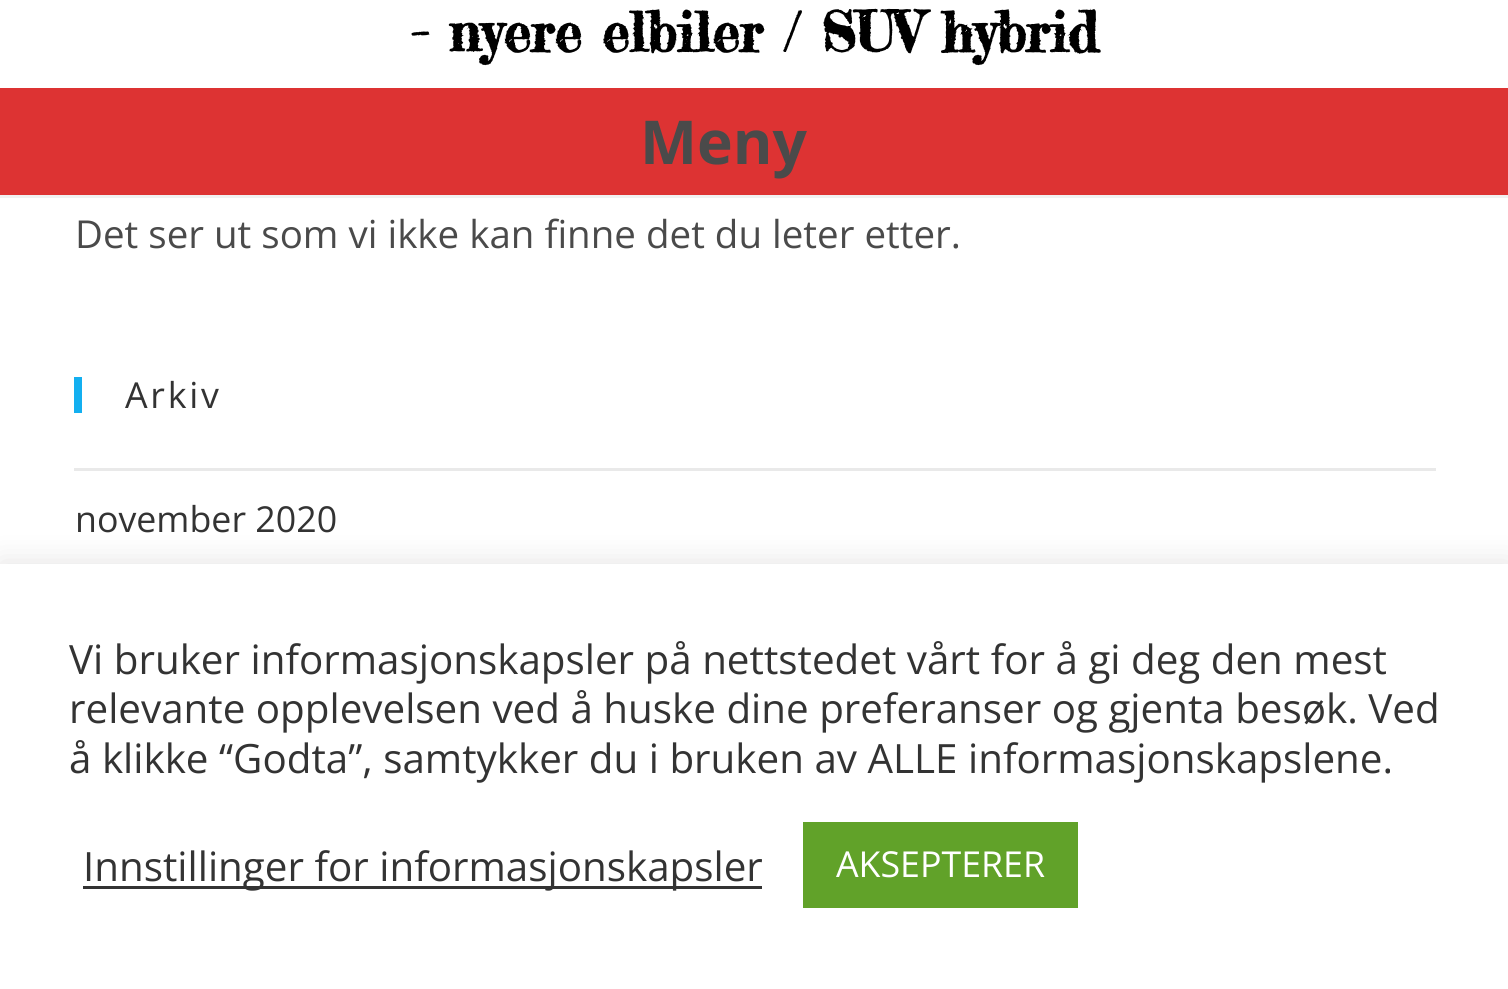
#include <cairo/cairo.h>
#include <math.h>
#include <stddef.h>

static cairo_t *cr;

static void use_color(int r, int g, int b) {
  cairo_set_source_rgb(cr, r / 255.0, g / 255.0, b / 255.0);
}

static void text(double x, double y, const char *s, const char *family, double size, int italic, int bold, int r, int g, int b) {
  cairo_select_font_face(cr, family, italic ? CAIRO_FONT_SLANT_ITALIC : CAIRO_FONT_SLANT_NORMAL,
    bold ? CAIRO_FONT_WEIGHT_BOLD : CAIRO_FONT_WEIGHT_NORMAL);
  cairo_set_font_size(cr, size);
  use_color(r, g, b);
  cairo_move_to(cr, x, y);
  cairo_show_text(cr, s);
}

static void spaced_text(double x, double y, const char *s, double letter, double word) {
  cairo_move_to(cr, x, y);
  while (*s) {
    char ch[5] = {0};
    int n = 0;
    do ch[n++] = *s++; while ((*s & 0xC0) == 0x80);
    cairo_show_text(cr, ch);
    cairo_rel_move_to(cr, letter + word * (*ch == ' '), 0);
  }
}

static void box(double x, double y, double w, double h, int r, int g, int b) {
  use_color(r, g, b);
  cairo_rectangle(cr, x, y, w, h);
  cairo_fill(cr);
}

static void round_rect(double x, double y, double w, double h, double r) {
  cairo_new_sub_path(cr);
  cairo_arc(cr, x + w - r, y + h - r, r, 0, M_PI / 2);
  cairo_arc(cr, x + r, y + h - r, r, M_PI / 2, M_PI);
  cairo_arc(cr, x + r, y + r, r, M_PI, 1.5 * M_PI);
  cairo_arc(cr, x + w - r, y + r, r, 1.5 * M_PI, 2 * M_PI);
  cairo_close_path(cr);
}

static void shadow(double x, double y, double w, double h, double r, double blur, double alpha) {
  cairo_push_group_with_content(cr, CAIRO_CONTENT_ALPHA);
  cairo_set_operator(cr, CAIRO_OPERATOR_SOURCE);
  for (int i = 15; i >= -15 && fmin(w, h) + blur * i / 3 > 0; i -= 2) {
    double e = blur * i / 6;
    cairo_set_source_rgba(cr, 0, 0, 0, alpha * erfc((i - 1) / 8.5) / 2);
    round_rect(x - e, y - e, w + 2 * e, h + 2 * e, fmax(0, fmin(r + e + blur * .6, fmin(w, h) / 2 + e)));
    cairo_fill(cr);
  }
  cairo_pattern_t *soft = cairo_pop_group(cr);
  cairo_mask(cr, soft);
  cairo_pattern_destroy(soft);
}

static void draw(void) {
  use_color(255, 255, 255);
  cairo_paint(cr);
  box(0, 195, 1508, 3, 241, 241, 241);
  box(0, 88, 1508, 107, 221, 51, 51);
  box(74, 377, 8, 36, 19, 175, 240);
  box(74, 468, 1362, 3, 233, 233, 233);
  use_color(172, 171, 171);
  shadow(0, 561, 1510, 426, 0, 14, 0.3);
  box(0, 564, 1508, 425, 255, 255, 255);
  box(83, 886, 679, 3, 51, 51, 51);
  box(803, 822, 275, 86, 97, 162, 41);
  text(411, 52, "- nyere elbiler / SUV hybrid", "Fredericka the Great", 55, 0, 1, 0, 0, 0);
  text(640, 164, "Meny", "Open Sans", 60.5, 0, 1, 74, 74, 74);
  text(75, 248, "Det ser ut som vi ikke kan finne det du leter etter.", "Open Sans", 38.5, 0, 0, 74, 74, 74);
  cairo_set_font_size(cr, 35.75);
  use_color(51, 51, 51);
  spaced_text(125, 408, "Arkiv", 2.75, 0);
  text(75, 532, "november 2020", "Open Sans", 35.75, 0, 0, 51, 51, 51);
  text(69, 674, "Vi bruker informasjonskapsler på nettstedet vårt for å gi deg den mest", "Open Sans", 40.35, 0, 0, 51, 51, 51);
  text(69, 723, "relevante opplevelsen ved å huske dine preferanser og gjenta besøk. Ved", "Open Sans", 40.35, 0, 0, 51, 51, 51);
  text(69, 773, "å klikke “Godta”, samtykker du i bruken av ALLE informasjonskapslene.", "Open Sans", 40.35, 0, 0, 51, 51, 51);
  text(83, 881, "Innstillinger for informasjonskapsler", "Open Sans", 40.35, 0, 0, 51, 51, 51);
  text(836, 877, "AKSEPTERER", "Open Sans", 35.75, 0, 0, 255, 255, 255);
}

int main(void) {
  cairo_surface_t *surface = cairo_image_surface_create(CAIRO_FORMAT_RGB24, 1508, 989);
  cr = cairo_create(surface);
  cairo_font_options_t *options = cairo_font_options_create();
  cairo_font_options_set_hint_metrics(options, CAIRO_HINT_METRICS_OFF);
  cairo_font_options_set_hint_style(options, CAIRO_HINT_STYLE_NONE);
  cairo_set_font_options(cr, options);
  cairo_set_miter_limit(cr, 4);
  draw();
  cairo_surface_write_to_png(surface, "out.png");
  cairo_font_options_destroy(options);
  cairo_destroy(cr);
  cairo_surface_destroy(surface);
  return 0;
}
